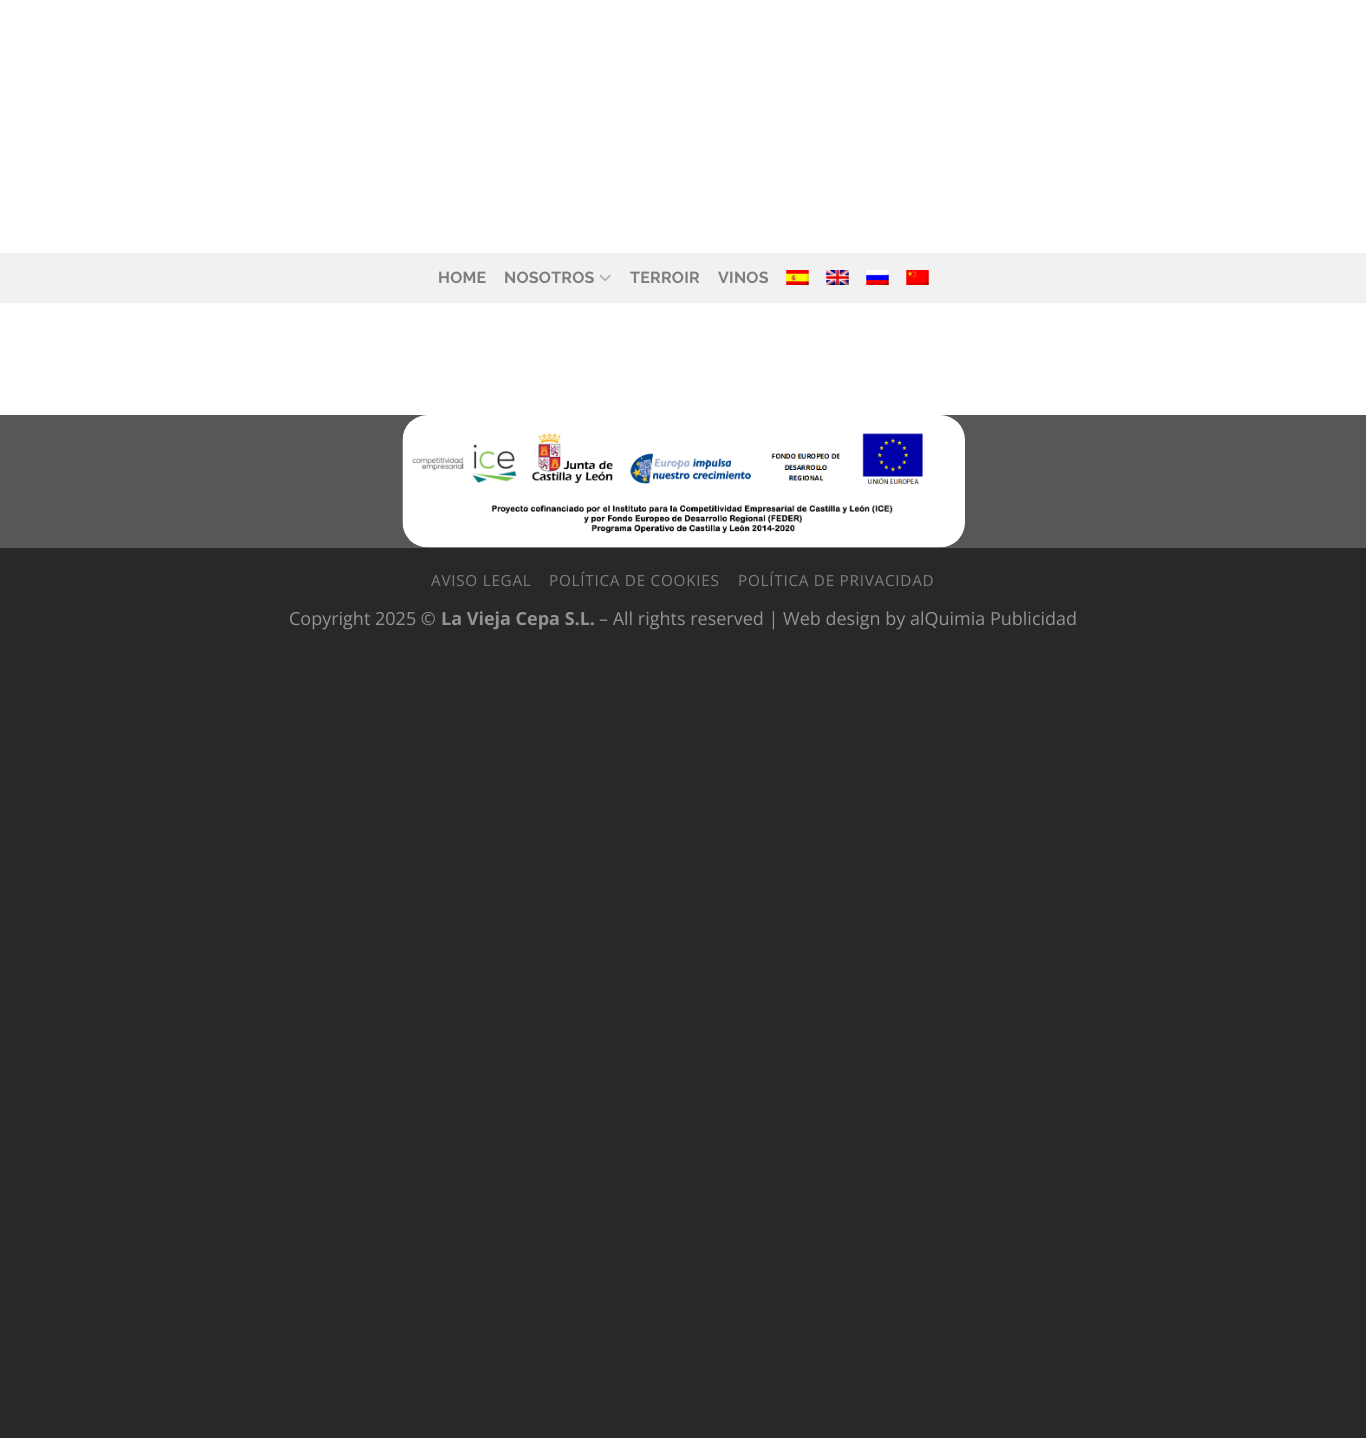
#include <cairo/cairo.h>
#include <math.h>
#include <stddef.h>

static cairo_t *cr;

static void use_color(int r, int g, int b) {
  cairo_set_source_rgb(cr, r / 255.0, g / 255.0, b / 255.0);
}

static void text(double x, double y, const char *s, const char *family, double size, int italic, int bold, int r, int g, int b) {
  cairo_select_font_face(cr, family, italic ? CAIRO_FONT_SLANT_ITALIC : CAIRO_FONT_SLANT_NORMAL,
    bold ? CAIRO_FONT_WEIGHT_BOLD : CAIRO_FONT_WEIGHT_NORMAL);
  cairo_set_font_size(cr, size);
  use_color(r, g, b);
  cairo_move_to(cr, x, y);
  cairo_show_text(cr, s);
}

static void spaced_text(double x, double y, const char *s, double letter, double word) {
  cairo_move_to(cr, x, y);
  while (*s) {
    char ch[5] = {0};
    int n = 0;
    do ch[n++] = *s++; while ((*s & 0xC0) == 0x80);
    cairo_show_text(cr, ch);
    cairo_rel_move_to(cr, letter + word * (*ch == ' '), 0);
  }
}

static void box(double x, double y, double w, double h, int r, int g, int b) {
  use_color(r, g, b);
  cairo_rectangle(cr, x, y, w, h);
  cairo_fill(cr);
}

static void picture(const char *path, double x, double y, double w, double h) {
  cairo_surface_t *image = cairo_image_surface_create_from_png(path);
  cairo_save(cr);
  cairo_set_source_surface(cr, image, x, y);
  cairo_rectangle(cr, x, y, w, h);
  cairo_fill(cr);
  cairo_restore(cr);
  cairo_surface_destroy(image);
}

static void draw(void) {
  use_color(40, 40, 40);
  cairo_paint(cr);
  box(0, 0, 1366, 415, 255, 255, 255);
  box(0, 253, 1366, 50, 241, 241, 241);
  picture("img_01.png", 599, 274, 12, 8);
  picture("img_02.png", 786, 270, 23, 15);
  picture("img_03.png", 826, 270, 23, 15);
  picture("img_04.png", 866, 270, 23, 15);
  picture("img_05.png", 906, 270, 23, 15);
  box(0, 415, 1366, 133, 88, 87, 87);
  picture("img_06.png", 402, 415, 563, 133);
  cairo_select_font_face(cr, "Raleway", CAIRO_FONT_SLANT_NORMAL, CAIRO_FONT_WEIGHT_BOLD);
  cairo_set_font_size(cr, 16);
  use_color(126, 126, 126);
  spaced_text(438, 283, "HOME", 0.25, 0);
  spaced_text(504, 283, "NOSOTROS", 0.25, 0);
  spaced_text(630, 283, "TERROIR", 0.25, 0);
  spaced_text(718, 283, "VINOS", 0.25, 0);
  cairo_select_font_face(cr, "Open Sans", CAIRO_FONT_SLANT_NORMAL, CAIRO_FONT_WEIGHT_NORMAL);
  cairo_set_font_size(cr, 15.25);
  spaced_text(431, 586, "AVISO LEGAL", 0.75, 0);
  spaced_text(549, 586, "POLÍTICA DE COOKIES", 0.75, 0);
  spaced_text(738, 586, "POLÍTICA DE PRIVACIDAD", 0.75, 0);
  text(289, 625, "Copyright 2025 ©", "Open Sans", 18, 0, 0, 148, 148, 148);
  text(441, 625, "La Vieja Cepa S.L.", "Open Sans", 18, 0, 1, 148, 148, 148);
  text(599, 625, "– All rights reserved | Web design by alQuimia Publicidad", "Open Sans", 18, 0, 0, 148, 148, 148);
}

int main(void) {
  cairo_surface_t *surface = cairo_image_surface_create(CAIRO_FORMAT_RGB24, 1366, 1438);
  cr = cairo_create(surface);
  cairo_font_options_t *options = cairo_font_options_create();
  cairo_font_options_set_hint_metrics(options, CAIRO_HINT_METRICS_OFF);
  cairo_font_options_set_hint_style(options, CAIRO_HINT_STYLE_NONE);
  cairo_set_font_options(cr, options);
  cairo_set_miter_limit(cr, 4);
  draw();
  cairo_surface_write_to_png(surface, "out.png");
  cairo_font_options_destroy(options);
  cairo_destroy(cr);
  cairo_surface_destroy(surface);
  return 0;
}
